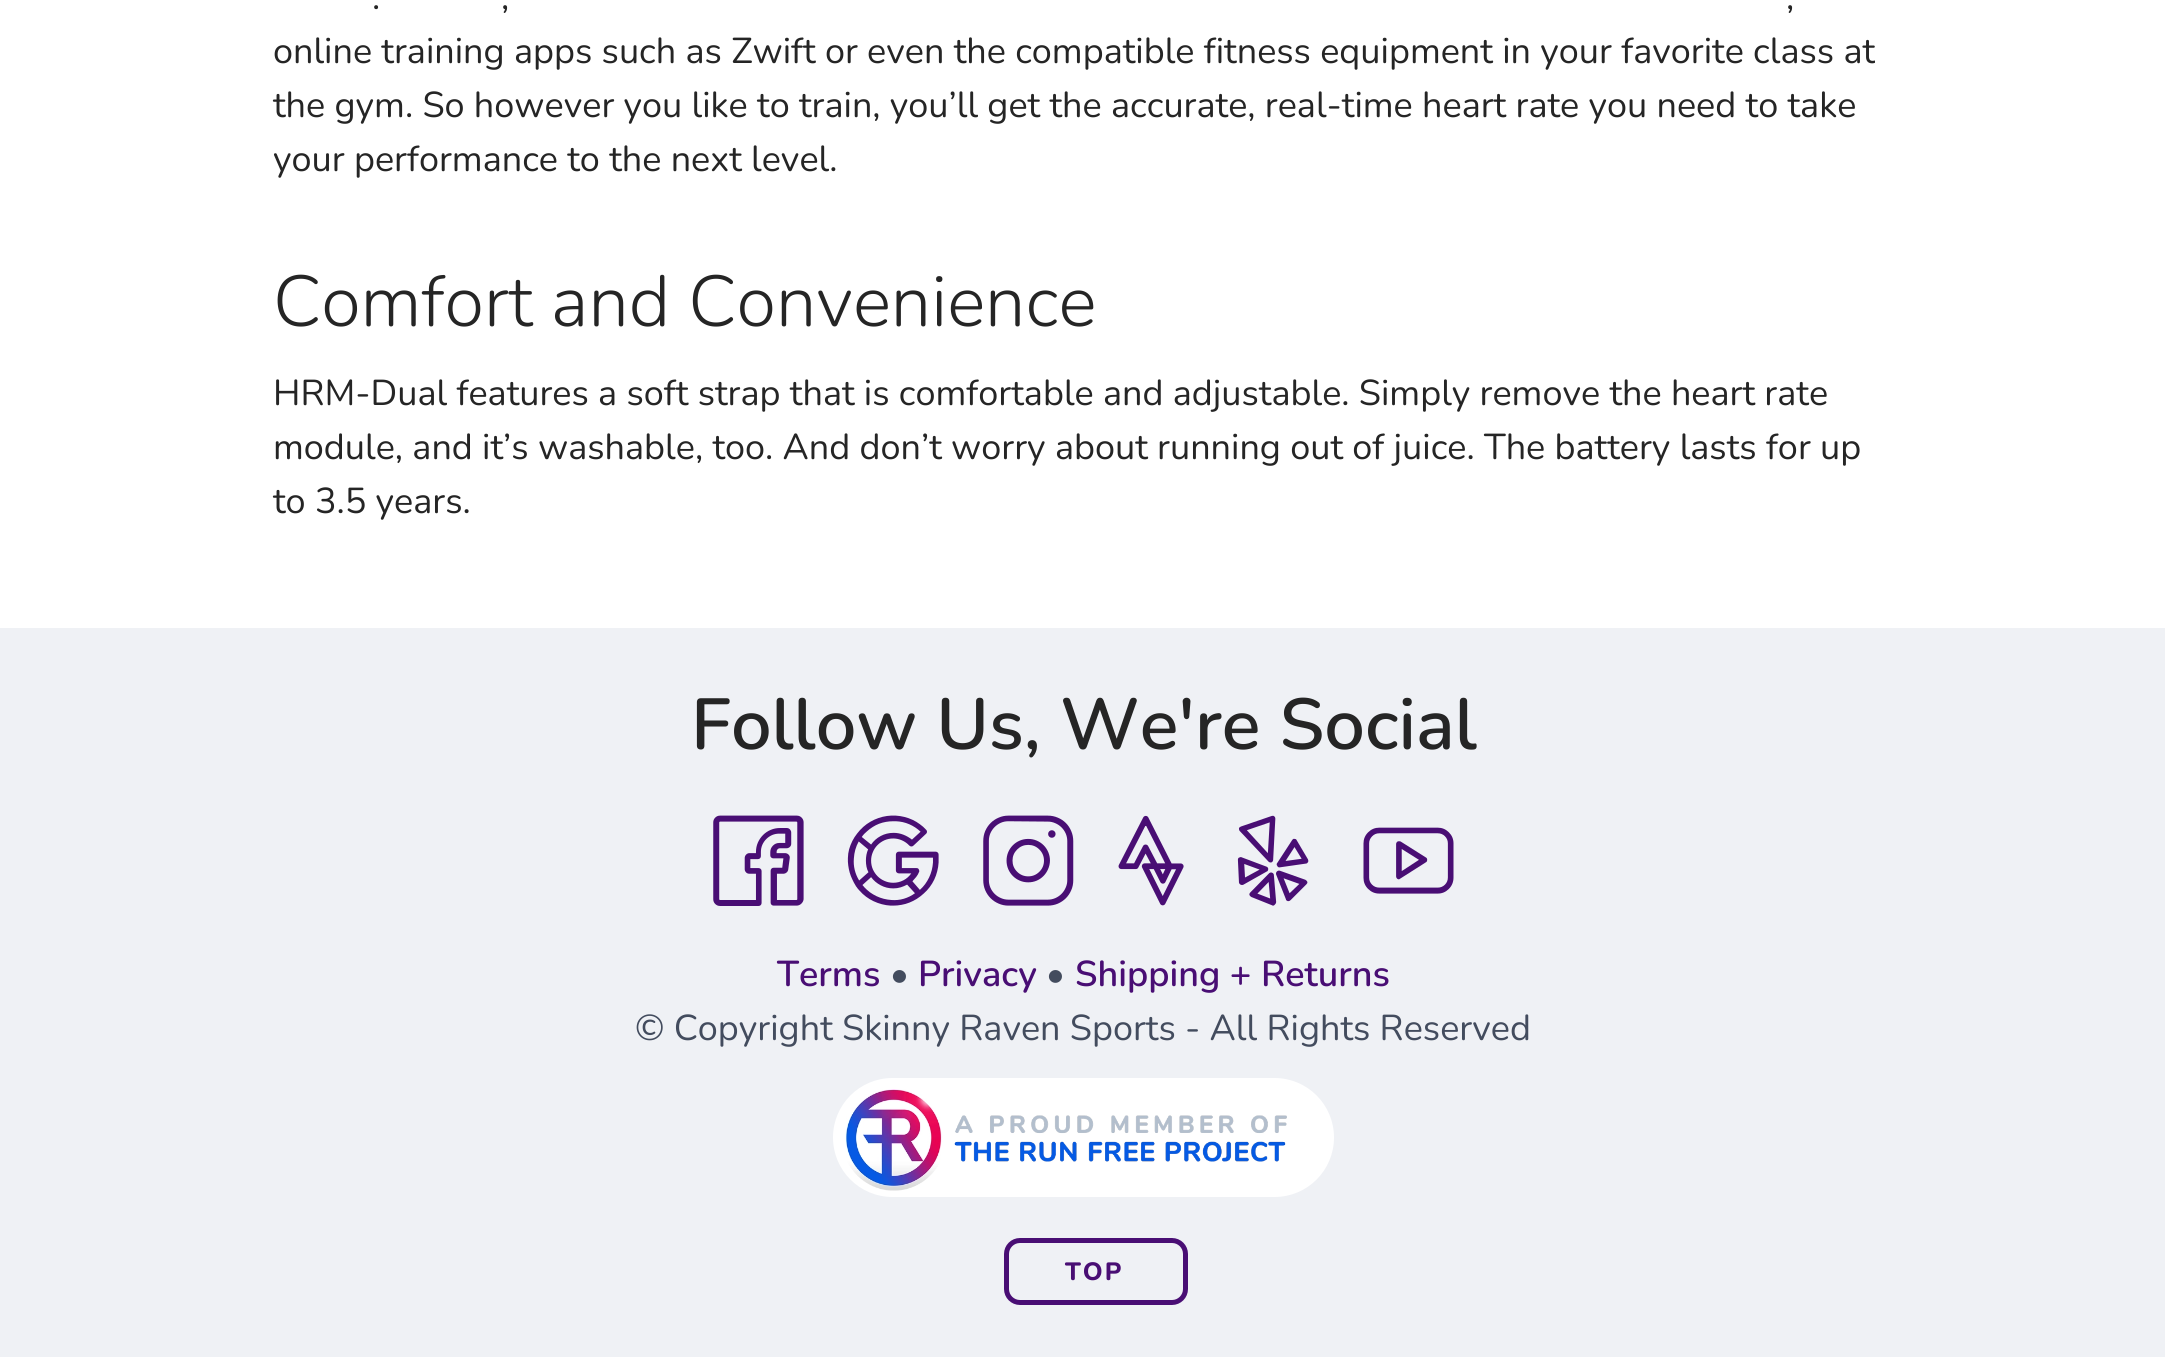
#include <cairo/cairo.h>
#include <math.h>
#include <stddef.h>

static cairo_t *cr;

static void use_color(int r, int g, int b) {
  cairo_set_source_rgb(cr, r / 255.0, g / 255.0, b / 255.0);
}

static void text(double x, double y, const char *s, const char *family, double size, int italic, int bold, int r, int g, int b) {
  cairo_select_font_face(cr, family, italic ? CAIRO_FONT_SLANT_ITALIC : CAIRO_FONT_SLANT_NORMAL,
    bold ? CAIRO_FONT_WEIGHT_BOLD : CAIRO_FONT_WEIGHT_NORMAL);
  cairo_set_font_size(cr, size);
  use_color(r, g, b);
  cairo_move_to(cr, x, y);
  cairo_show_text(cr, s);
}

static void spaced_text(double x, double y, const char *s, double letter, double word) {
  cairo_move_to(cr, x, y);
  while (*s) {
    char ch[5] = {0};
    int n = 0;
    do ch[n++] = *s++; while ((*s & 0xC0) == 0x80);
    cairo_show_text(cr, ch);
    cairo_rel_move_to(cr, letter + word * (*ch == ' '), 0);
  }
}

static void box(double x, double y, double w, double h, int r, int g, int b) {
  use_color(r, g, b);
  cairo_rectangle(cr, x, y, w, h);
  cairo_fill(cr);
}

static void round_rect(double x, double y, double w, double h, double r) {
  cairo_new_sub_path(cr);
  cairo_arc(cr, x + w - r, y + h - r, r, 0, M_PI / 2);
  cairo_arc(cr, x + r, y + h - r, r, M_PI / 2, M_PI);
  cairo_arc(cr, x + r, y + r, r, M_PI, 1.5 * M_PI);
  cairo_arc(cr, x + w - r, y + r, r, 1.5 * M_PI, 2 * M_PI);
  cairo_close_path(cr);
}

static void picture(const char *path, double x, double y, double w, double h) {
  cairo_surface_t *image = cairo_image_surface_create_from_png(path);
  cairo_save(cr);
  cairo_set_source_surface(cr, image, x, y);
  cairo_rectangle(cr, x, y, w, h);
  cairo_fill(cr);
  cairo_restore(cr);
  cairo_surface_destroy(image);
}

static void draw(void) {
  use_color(255, 255, 255);
  cairo_paint(cr);
  box(0, 628, 2165, 729, 239, 241, 245);
  picture("img_01.png", 713, 815, 91, 91);
  picture("img_02.png", 847, 815, 92, 91);
  picture("img_03.png", 983, 815, 91, 91);
  picture("img_04.png", 1118, 815, 66, 91);
  picture("img_05.png", 1237, 815, 72, 91);
  picture("img_06.png", 1363, 827, 91, 67);
  use_color(255, 255, 255);
  round_rect(833, 1078, 501, 119, 59.5);
  cairo_fill(cr);
  picture("img_07.png", 845, 1089, 442, 102);
  round_rect(1006.5, 1240.5, 179, 62, 13.5);
  use_color(73, 14, 116);
  cairo_set_line_width(cr, 5);
  cairo_stroke(cr);
  text(372, 9, ".", "Nunito", 36, 0, 0, 37, 37, 37);
  text(501, 9, ",", "Nunito", 36, 0, 0, 37, 37, 37);
  text(1786, 9, ",", "Nunito", 36, 0, 0, 37, 37, 37);
  text(273, 63, "online training apps such as Zwift or even the compatible fitness equipment in your favorite class at", "Nunito", 36, 0, 0, 37, 37, 37);
  text(273, 117, "the gym. So however you like to train, you’ll get the accurate, real-time heart rate you need to take", "Nunito", 36, 0, 0, 37, 37, 37);
  text(273, 171, "your performance to the next level.", "Nunito", 36, 0, 0, 37, 37, 37);
  text(273, 326, "Comfort and Convenience", "Nunito Light", 72, 0, 0, 37, 37, 37);
  text(273, 405, "HRM-Dual features a soft strap that is comfortable and adjustable. Simply remove the heart rate", "Nunito", 36, 0, 0, 37, 37, 37);
  text(273, 459, "module, and it’s washable, too. And don’t worry about running out of juice. The battery lasts for up", "Nunito", 36, 0, 0, 37, 37, 37);
  text(273, 513, "to 3.5 years.", "Nunito", 36, 0, 0, 37, 37, 37);
  text(691, 749, "Follow Us, We're Social", "Nunito SemiBold", 72, 0, 0, 37, 37, 37);
  text(777, 986, "Terms", "Nunito SemiBold", 36, 0, 0, 73, 14, 116);
  text(890, 986, "•", "Nunito", 36, 0, 0, 67, 76, 94);
  text(918, 986, "Privacy", "Nunito SemiBold", 36, 0, 0, 73, 14, 116);
  text(1046, 986, "•", "Nunito", 36, 0, 0, 67, 76, 94);
  text(1075, 986, "Shipping + Returns", "Nunito SemiBold", 36, 0, 0, 73, 14, 116);
  text(635, 1040, "© Copyright Skinny Raven Sports - All Rights Reserved", "Nunito", 36, 0, 0, 67, 76, 94);
  cairo_select_font_face(cr, "Nunito ExtraBold", CAIRO_FONT_SLANT_NORMAL, CAIRO_FONT_WEIGHT_NORMAL);
  cairo_set_font_size(cr, 25);
  use_color(73, 14, 116);
  spaced_text(1065, 1280, "TOP", 2, 0);
}

int main(void) {
  cairo_surface_t *surface = cairo_image_surface_create(CAIRO_FORMAT_RGB24, 2165, 1357);
  cr = cairo_create(surface);
  cairo_font_options_t *options = cairo_font_options_create();
  cairo_font_options_set_hint_metrics(options, CAIRO_HINT_METRICS_OFF);
  cairo_font_options_set_hint_style(options, CAIRO_HINT_STYLE_NONE);
  cairo_set_font_options(cr, options);
  cairo_set_miter_limit(cr, 4);
  draw();
  cairo_surface_write_to_png(surface, "out.png");
  cairo_font_options_destroy(options);
  cairo_destroy(cr);
  cairo_surface_destroy(surface);
  return 0;
}
